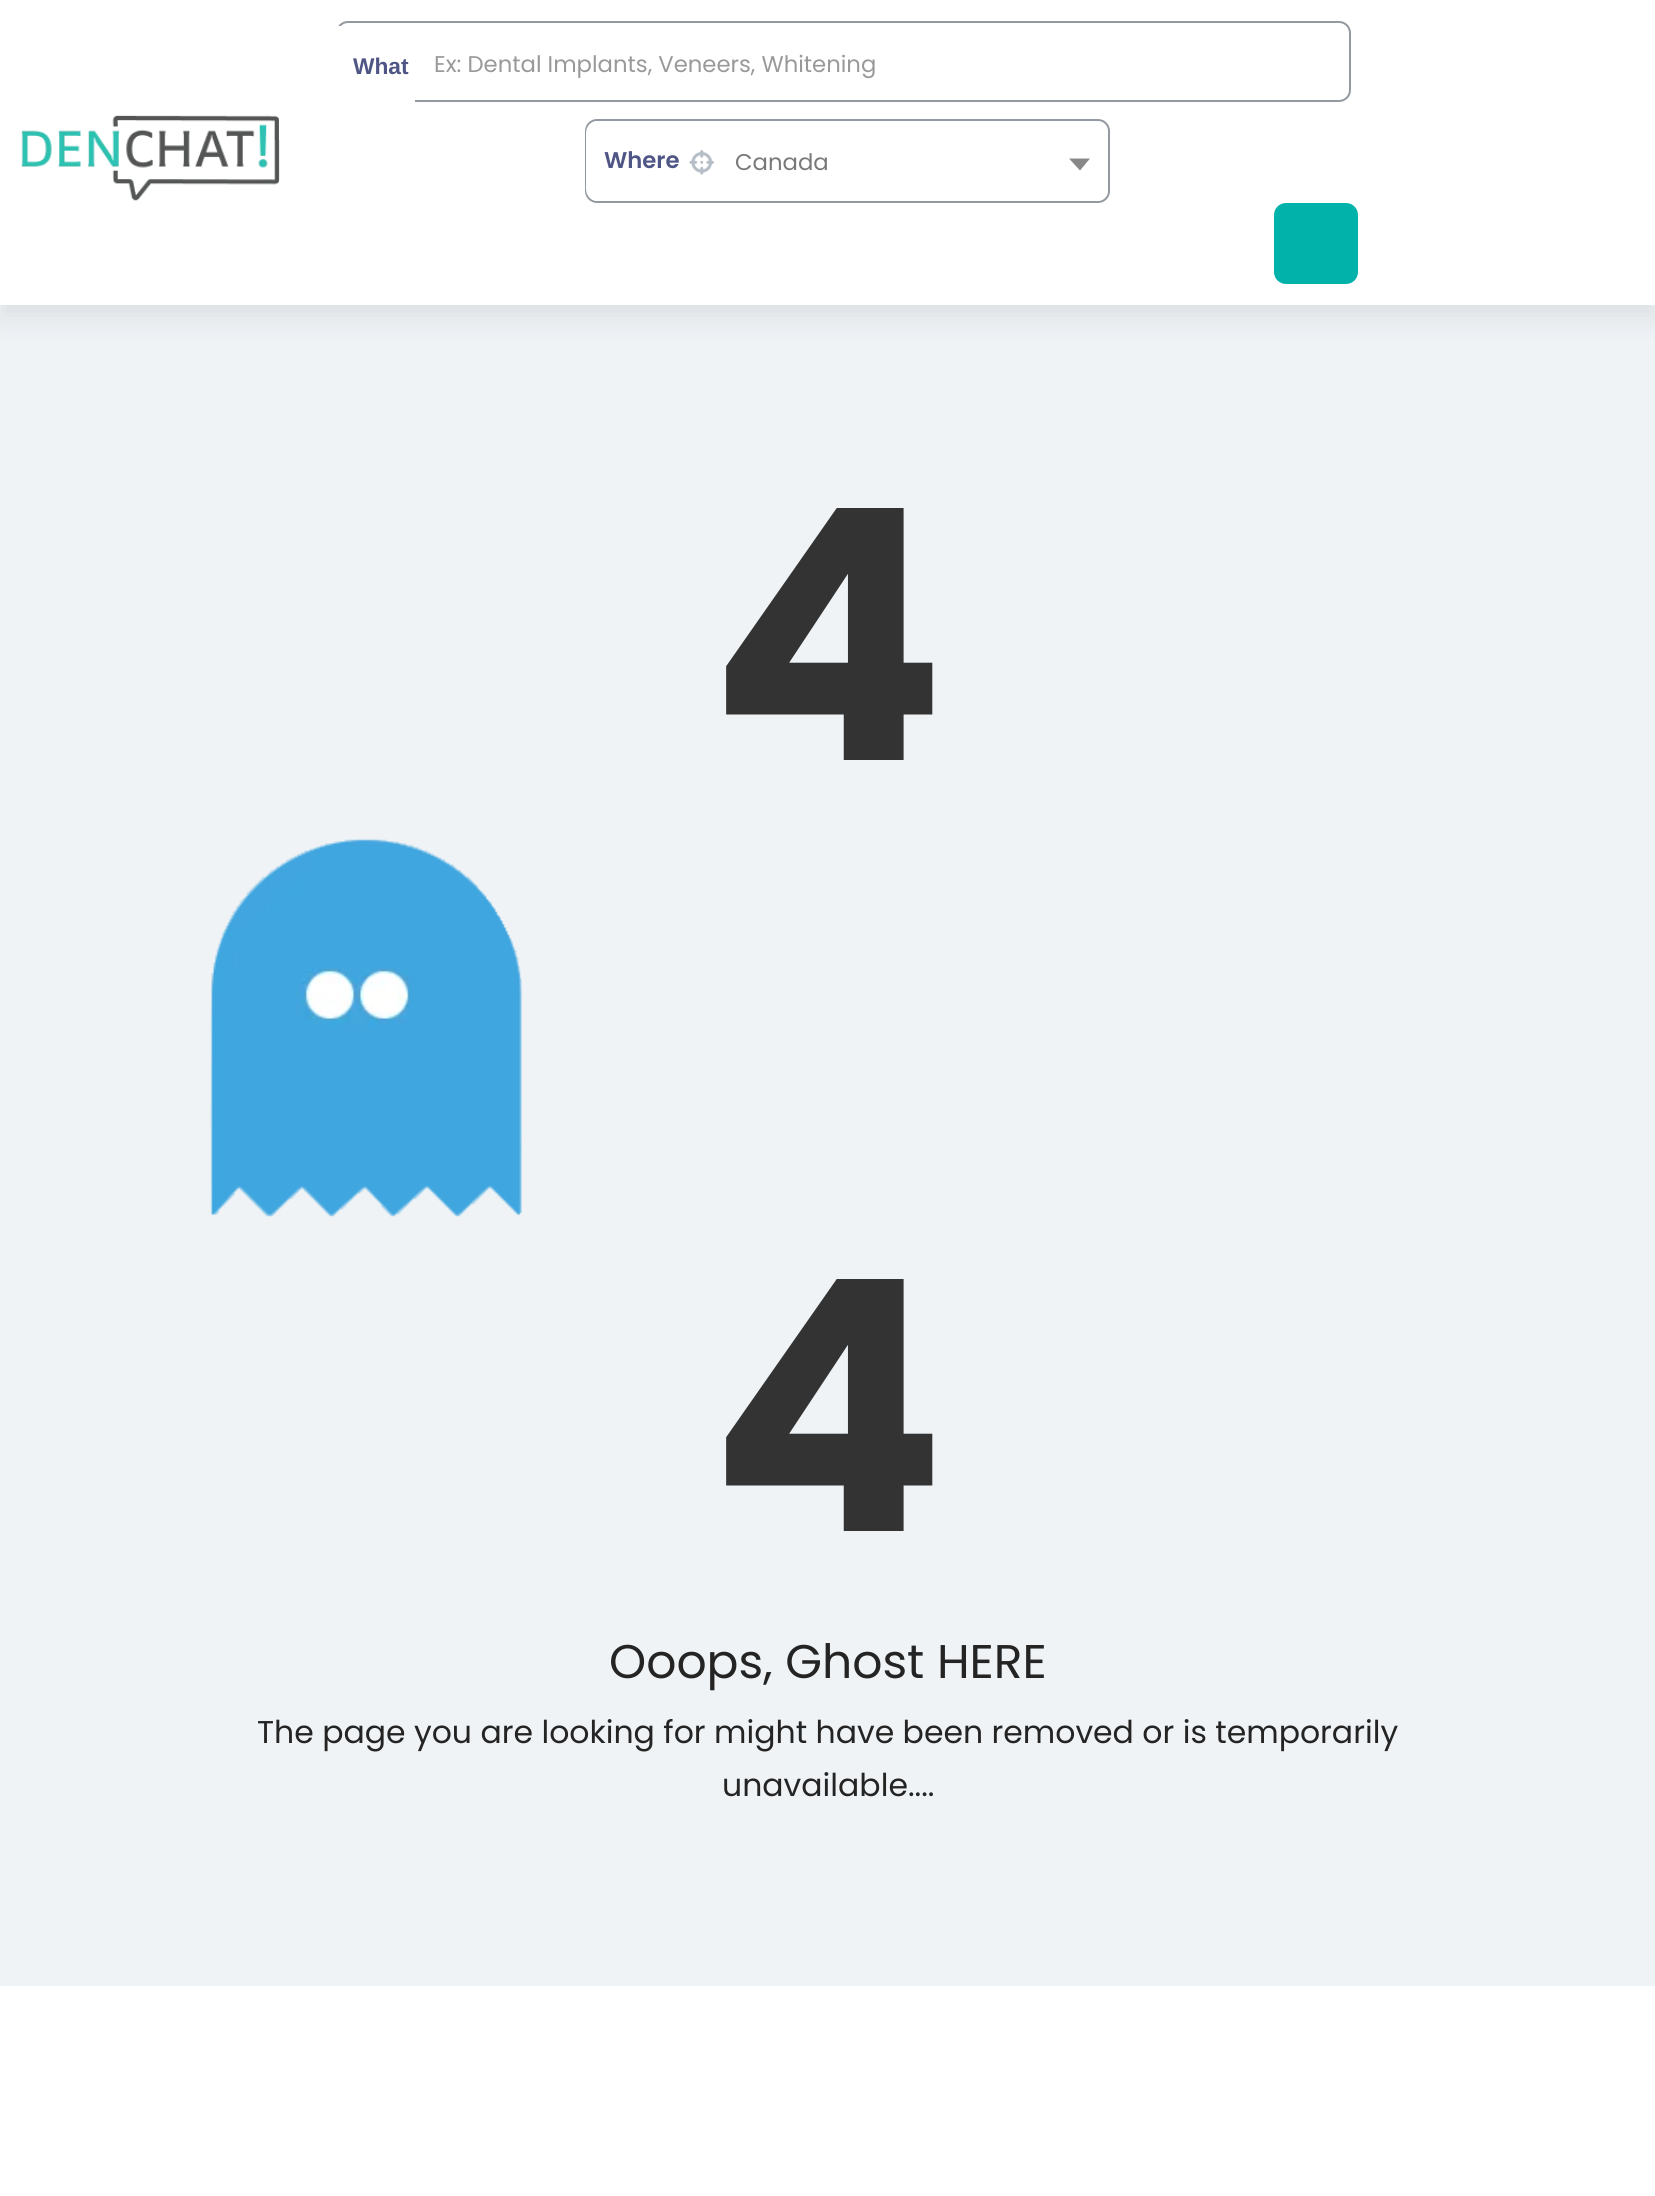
#include <cairo/cairo.h>
#include <math.h>
#include <stddef.h>

static cairo_t *cr;

static void use_color(int r, int g, int b) {
  cairo_set_source_rgb(cr, r / 255.0, g / 255.0, b / 255.0);
}

static void text(double x, double y, const char *s, const char *family, double size, int italic, int bold, int r, int g, int b) {
  cairo_select_font_face(cr, family, italic ? CAIRO_FONT_SLANT_ITALIC : CAIRO_FONT_SLANT_NORMAL,
    bold ? CAIRO_FONT_WEIGHT_BOLD : CAIRO_FONT_WEIGHT_NORMAL);
  cairo_set_font_size(cr, size);
  use_color(r, g, b);
  cairo_move_to(cr, x, y);
  cairo_show_text(cr, s);
}

static void box(double x, double y, double w, double h, int r, int g, int b) {
  use_color(r, g, b);
  cairo_rectangle(cr, x, y, w, h);
  cairo_fill(cr);
}

static void round_rect(double x, double y, double w, double h, double r) {
  cairo_new_sub_path(cr);
  cairo_arc(cr, x + w - r, y + h - r, r, 0, M_PI / 2);
  cairo_arc(cr, x + r, y + h - r, r, M_PI / 2, M_PI);
  cairo_arc(cr, x + r, y + r, r, M_PI, 1.5 * M_PI);
  cairo_arc(cr, x + w - r, y + r, r, 1.5 * M_PI, 2 * M_PI);
  cairo_close_path(cr);
}

static void shadow(double x, double y, double w, double h, double r, double blur, double alpha) {
  cairo_push_group_with_content(cr, CAIRO_CONTENT_ALPHA);
  cairo_set_operator(cr, CAIRO_OPERATOR_SOURCE);
  for (int i = 15; i >= -15 && fmin(w, h) + blur * i / 3 > 0; i -= 2) {
    double e = blur * i / 6;
    cairo_set_source_rgba(cr, 0, 0, 0, alpha * erfc((i - 1) / 8.5) / 2);
    round_rect(x - e, y - e, w + 2 * e, h + 2 * e, fmax(0, fmin(r + e + blur * .6, fmin(w, h) / 2 + e)));
    cairo_fill(cr);
  }
  cairo_pattern_t *soft = cairo_pop_group(cr);
  cairo_mask(cr, soft);
  cairo_pattern_destroy(soft);
}

static void picture(const char *path, double x, double y, double w, double h) {
  cairo_surface_t *image = cairo_image_surface_create_from_png(path);
  cairo_save(cr);
  cairo_set_source_surface(cr, image, x, y);
  cairo_rectangle(cr, x, y, w, h);
  cairo_fill(cr);
  cairo_restore(cr);
  cairo_surface_destroy(image);
}

static void draw(void) {
  use_color(255, 255, 255);
  cairo_paint(cr);
  box(0, 305, 1655, 1681, 239, 243, 246);
  use_color(56, 56, 64);
  shadow(0, 14, 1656, 305, 0, 12, 0.1);
  box(0, 0, 1655, 305, 255, 255, 255);
  picture("img_01.png", 21, 115, 259, 86);
  round_rect(337, 22, 1013, 79, 11);
  use_color(147, 153, 161);
  cairo_stroke(cr);
  box(336, 26, 79, 76, 255, 255, 255);
  round_rect(586, 120, 523, 82, 11);
  use_color(147, 153, 161);
  cairo_stroke(cr);
  use_color(255, 255, 255);
  round_rect(586, 121, 522, 80, 12);
  cairo_fill(cr);
  picture("img_02.png", 689, 150, 25, 25);
  use_color(136, 136, 136);
  cairo_new_path(cr);
  cairo_move_to(cr, 1069, 158.5);
  cairo_line_to(cr, 1090, 158.5);
  cairo_line_to(cr, 1080, 170.5);
  cairo_close_path(cr);
  cairo_fill(cr);
  use_color(0, 178, 169);
  round_rect(1274, 203, 84, 81, 12);
  cairo_fill(cr);
  picture("img_03.png", 209, 838, 313, 379);
  text(353, 74, "What", "Liberation Sans", 22.75, 0, 1, 79, 86, 133);
  text(434, 72, "Ex: Dental Implants, Veneers, Whitening", "Poppins", 22.75, 0, 0, 153, 153, 153);
  text(604, 168, "Where", "Poppins SemiBold", 22.75, 0, 0, 79, 86, 133);
  text(735, 170, "Canada", "Poppins", 22.75, 0, 0, 121, 121, 121);
  text(709, 760, "4", "Poppins", 350, 0, 1, 51, 51, 51);
  text(709, 1531, "4", "Poppins", 350, 0, 1, 51, 51, 51);
  text(609, 1678, "Ooops, Ghost HERE", "Poppins", 47.25, 0, 0, 36, 36, 36);
  text(257, 1743, "The page you are looking for might have been removed or is temporarily", "Poppins", 31.5, 0, 0, 36, 36, 36);
  text(722, 1796, "unavailable....", "Poppins", 31.5, 0, 0, 36, 36, 36);
}

int main(void) {
  cairo_surface_t *surface = cairo_image_surface_create(CAIRO_FORMAT_RGB24, 1655, 2196);
  cr = cairo_create(surface);
  cairo_font_options_t *options = cairo_font_options_create();
  cairo_font_options_set_hint_metrics(options, CAIRO_HINT_METRICS_OFF);
  cairo_font_options_set_hint_style(options, CAIRO_HINT_STYLE_NONE);
  cairo_set_font_options(cr, options);
  cairo_set_miter_limit(cr, 4);
  draw();
  cairo_surface_write_to_png(surface, "out.png");
  cairo_font_options_destroy(options);
  cairo_destroy(cr);
  cairo_surface_destroy(surface);
  return 0;
}
